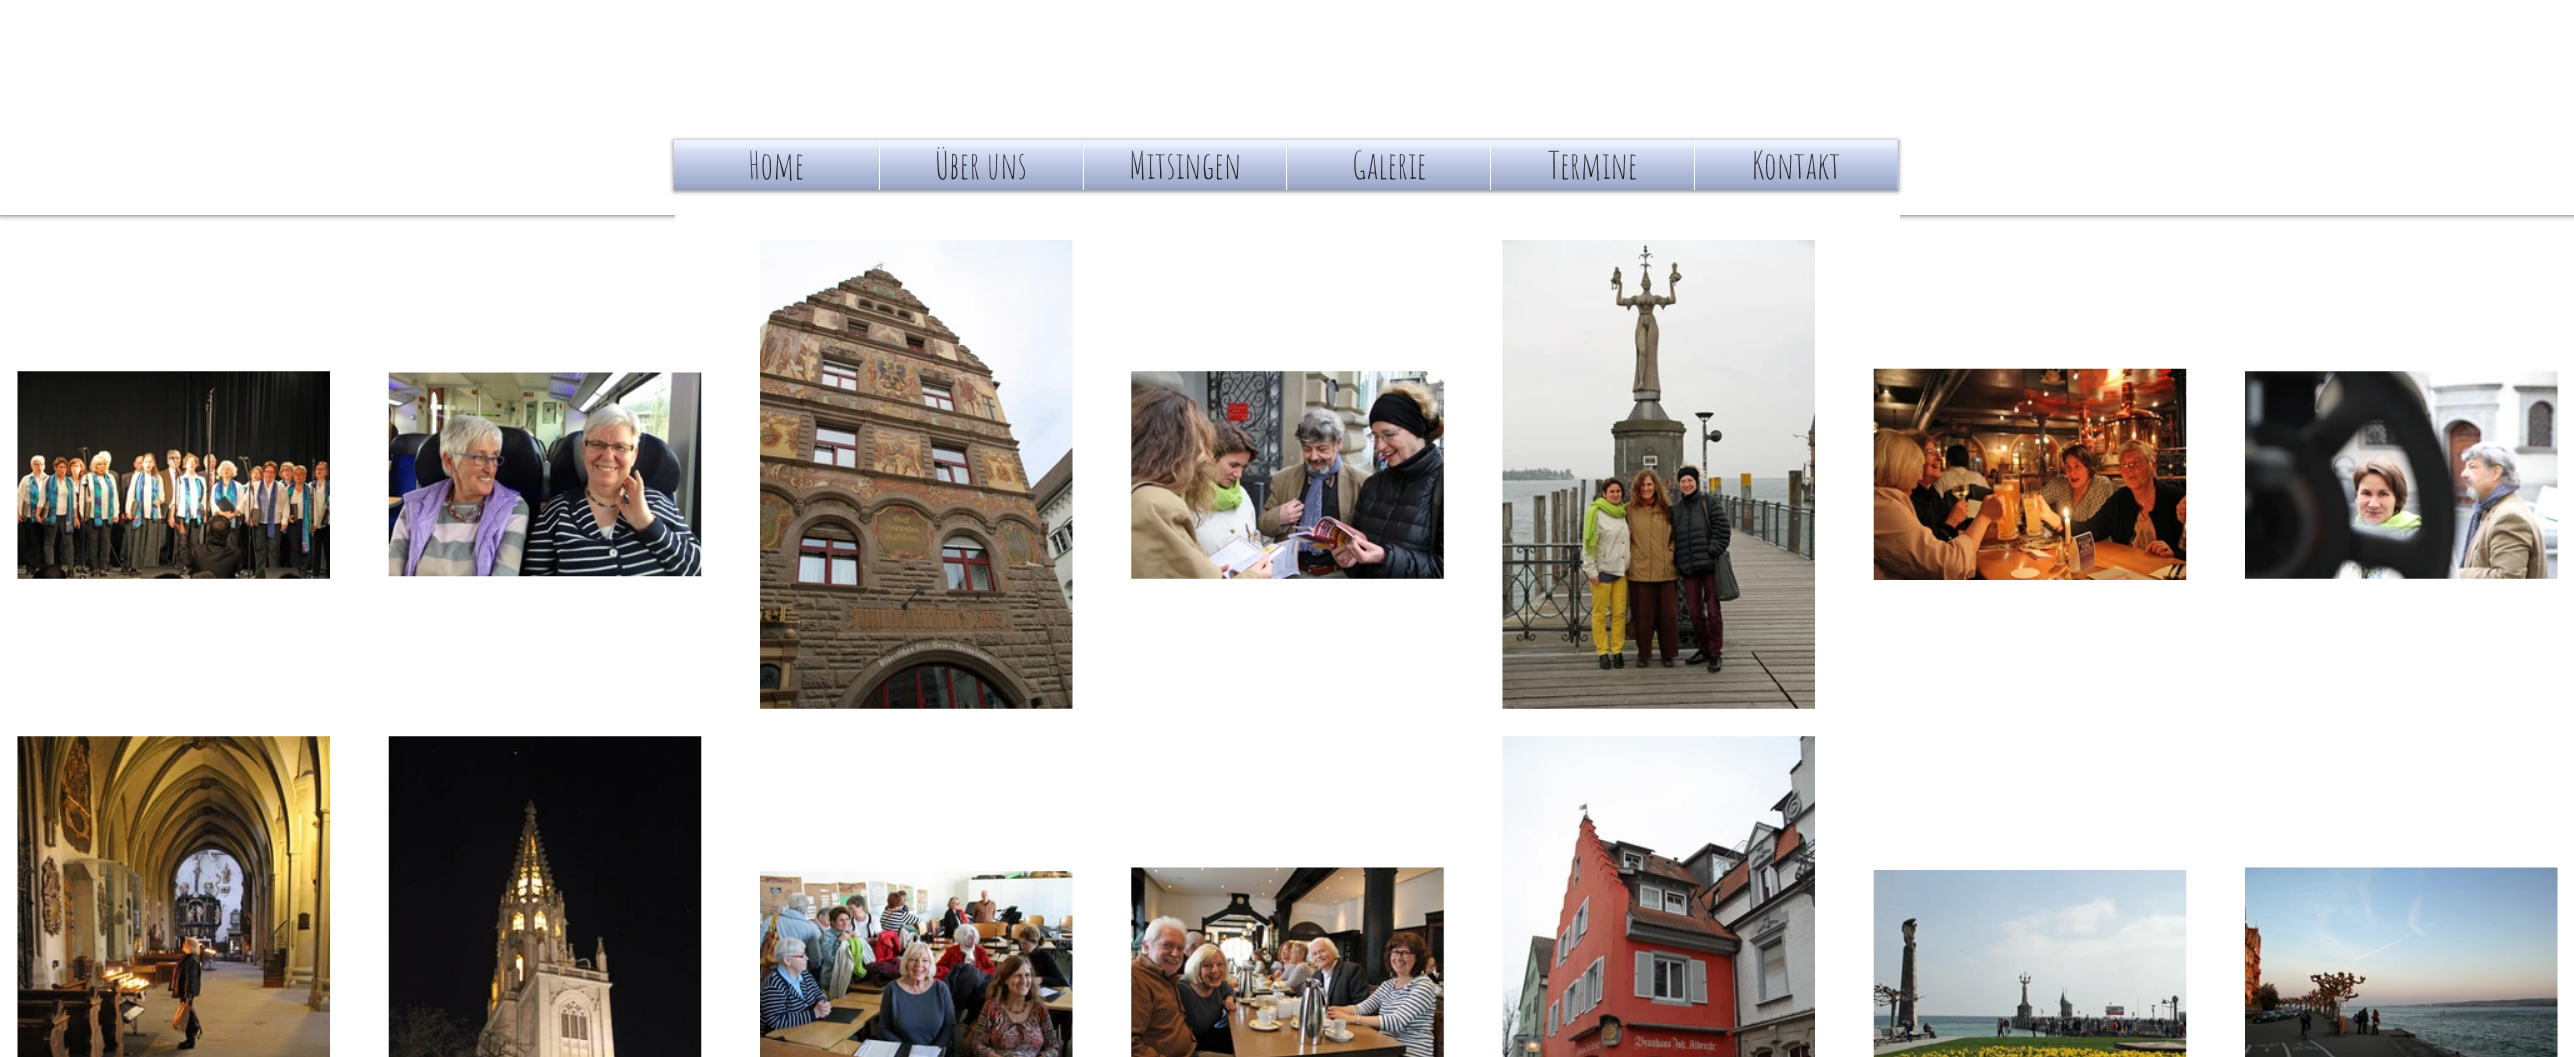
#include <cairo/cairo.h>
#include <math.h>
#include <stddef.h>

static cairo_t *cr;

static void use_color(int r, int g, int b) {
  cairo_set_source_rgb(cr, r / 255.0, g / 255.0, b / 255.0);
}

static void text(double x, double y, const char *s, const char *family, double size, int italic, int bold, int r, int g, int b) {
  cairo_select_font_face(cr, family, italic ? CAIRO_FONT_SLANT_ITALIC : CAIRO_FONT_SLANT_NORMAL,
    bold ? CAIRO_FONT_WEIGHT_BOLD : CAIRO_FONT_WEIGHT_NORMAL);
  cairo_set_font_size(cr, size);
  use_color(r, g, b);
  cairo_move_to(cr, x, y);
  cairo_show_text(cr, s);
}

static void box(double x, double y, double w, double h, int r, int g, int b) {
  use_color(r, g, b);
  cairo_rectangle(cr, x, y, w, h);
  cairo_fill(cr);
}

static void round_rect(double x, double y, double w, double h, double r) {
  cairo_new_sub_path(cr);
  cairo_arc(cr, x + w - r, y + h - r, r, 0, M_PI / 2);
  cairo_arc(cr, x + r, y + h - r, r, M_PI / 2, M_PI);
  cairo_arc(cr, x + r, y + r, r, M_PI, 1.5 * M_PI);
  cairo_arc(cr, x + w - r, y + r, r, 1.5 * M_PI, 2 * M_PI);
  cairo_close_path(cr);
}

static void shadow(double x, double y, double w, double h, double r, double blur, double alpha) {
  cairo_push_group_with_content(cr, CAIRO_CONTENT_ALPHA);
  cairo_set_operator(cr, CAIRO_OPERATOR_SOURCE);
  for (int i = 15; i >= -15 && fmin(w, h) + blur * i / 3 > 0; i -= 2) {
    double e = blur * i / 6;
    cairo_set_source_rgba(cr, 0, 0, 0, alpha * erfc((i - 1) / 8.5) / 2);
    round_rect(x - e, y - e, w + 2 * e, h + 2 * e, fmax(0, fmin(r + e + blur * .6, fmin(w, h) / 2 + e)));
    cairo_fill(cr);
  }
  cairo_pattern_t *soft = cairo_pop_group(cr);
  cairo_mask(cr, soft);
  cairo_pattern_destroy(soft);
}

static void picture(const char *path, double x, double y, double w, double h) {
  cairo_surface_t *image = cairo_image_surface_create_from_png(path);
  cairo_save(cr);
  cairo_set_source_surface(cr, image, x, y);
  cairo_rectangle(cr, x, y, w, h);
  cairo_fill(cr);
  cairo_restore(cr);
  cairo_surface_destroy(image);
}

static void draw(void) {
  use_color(255, 255, 255);
  cairo_paint(cr);
  cairo_save(cr);
  cairo_rectangle(cr, 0, 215, 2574, 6);
  cairo_clip(cr);
  use_color(0, 0, 0);
  shadow(0, 0, 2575, 215, 0, 3, 0.7);
  cairo_restore(cr);
  cairo_save(cr);
  cairo_set_fill_rule(cr, CAIRO_FILL_RULE_EVEN_ODD);
  cairo_new_path(cr);
  cairo_move_to(cr, 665, 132);
  cairo_line_to(cr, 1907, 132);
  cairo_line_to(cr, 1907, 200);
  cairo_line_to(cr, 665, 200);
  cairo_close_path(cr);
  cairo_move_to(cr, 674, 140);
  cairo_line_to(cr, 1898, 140);
  cairo_line_to(cr, 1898, 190);
  cairo_line_to(cr, 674, 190);
  cairo_close_path(cr);
  cairo_clip(cr);
  use_color(0, 0, 0);
  shadow(674, 141, 1224, 50, 0, 2.5, 0.6);
  cairo_restore(cr);
  cairo_set_source_rgba(cr, 0.275, 0.455, 0.988, 0.17);
  cairo_rectangle(cr, 674, 140, 1224, 50);
  cairo_fill(cr);
  picture("img_01.png", 673, 140, 1225, 36);
  picture("img_02.png", 674, 148, 1224, 42);
  cairo_rectangle(cr, 674, 140, 205, 50);
  cairo_fill(cr);
  cairo_rectangle(cr, 879, 140, 204, 50);
  cairo_fill(cr);
  cairo_set_source_rgba(cr, 1, 1, 1, 0.99);
  cairo_rectangle(cr, 879, 140, 1, 50);
  cairo_fill(cr);
  cairo_set_source_rgba(cr, 0.275, 0.455, 0.988, 0.17);
  cairo_rectangle(cr, 1083, 140, 203, 50);
  cairo_fill(cr);
  cairo_set_source_rgba(cr, 1, 1, 1, 0.99);
  cairo_rectangle(cr, 1083, 140, 1, 50);
  cairo_fill(cr);
  cairo_set_source_rgba(cr, 0.275, 0.455, 0.988, 0.17);
  cairo_rectangle(cr, 1490, 140, 204, 50);
  cairo_fill(cr);
  cairo_set_source_rgba(cr, 1, 1, 1, 0.99);
  cairo_rectangle(cr, 1490, 140, 1, 50);
  cairo_fill(cr);
  cairo_set_source_rgba(cr, 0.275, 0.455, 0.988, 0.17);
  cairo_rectangle(cr, 1694, 140, 204, 50);
  cairo_fill(cr);
  cairo_set_source_rgba(cr, 1, 1, 1, 0.99);
  cairo_rectangle(cr, 1694, 140, 1, 50);
  cairo_fill(cr);
  box(675, 215, 1225, 7, 255, 255, 255);
  picture("img_15.png", 17, 371, 313, 208);
  picture("img_16.png", 388, 372, 314, 205);
  picture("img_17.png", 760, 240, 313, 469);
  picture("img_18.png", 1131, 371, 313, 208);
  picture("img_19.png", 1502, 240, 313, 469);
  picture("img_20.png", 1873, 368, 314, 212);
  picture("img_21.png", 2245, 371, 313, 208);
  picture("img_22.png", 17, 736, 313, 321);
  picture("img_23.png", 388, 736, 314, 321);
  picture("img_24.png", 760, 871, 313, 186);
  picture("img_25.png", 1131, 867, 313, 190);
  picture("img_26.png", 1502, 736, 313, 321);
  picture("img_27.png", 1873, 870, 314, 187);
  picture("img_28.png", 2245, 867, 313, 190);
  text(748, 179, "Home", "Amatic SC", 37.5, 0, 0, 0, 0, 0);
  picture("img_03.png", 674, 140, 205, 49);
  picture("img_04.png", 674, 148, 205, 42);
  text(935, 179, "Über uns", "Amatic SC", 37.5, 0, 0, 0, 0, 0);
  picture("img_05.png", 880, 140, 203, 49);
  picture("img_06.png", 880, 148, 203, 42);
  text(1129, 179, "Mitsingen", "Amatic SC", 37.5, 0, 0, 0, 0, 0);
  picture("img_07.png", 1084, 140, 202, 49);
  picture("img_08.png", 1083, 148, 204, 42);
  cairo_set_source_rgba(cr, 0.275, 0.455, 0.988, 0.17);
  cairo_rectangle(cr, 1286, 140, 204, 50);
  cairo_fill(cr);
  cairo_set_source_rgba(cr, 1, 1, 1, 0.99);
  cairo_rectangle(cr, 1286, 140, 1, 50);
  cairo_fill(cr);
  text(1352, 179, "Galerie", "Amatic SC", 37.5, 0, 0, 0, 0, 0);
  picture("img_09.png", 1287, 140, 203, 49);
  picture("img_10.png", 1287, 148, 203, 42);
  text(1548, 179, "Termine", "Amatic SC", 37.5, 0, 0, 0, 0, 0);
  picture("img_11.png", 1491, 140, 203, 49);
  picture("img_12.png", 1491, 148, 203, 42);
  text(1752, 179, "Kontakt", "Amatic SC", 37.5, 0, 0, 0, 0, 0);
  picture("img_13.png", 1695, 140, 203, 49);
  picture("img_14.png", 1695, 148, 203, 42);
}

int main(void) {
  cairo_surface_t *surface = cairo_image_surface_create(CAIRO_FORMAT_RGB24, 2574, 1057);
  cr = cairo_create(surface);
  cairo_font_options_t *options = cairo_font_options_create();
  cairo_font_options_set_hint_metrics(options, CAIRO_HINT_METRICS_OFF);
  cairo_font_options_set_hint_style(options, CAIRO_HINT_STYLE_NONE);
  cairo_set_font_options(cr, options);
  cairo_set_miter_limit(cr, 4);
  draw();
  cairo_surface_write_to_png(surface, "out.png");
  cairo_font_options_destroy(options);
  cairo_destroy(cr);
  cairo_surface_destroy(surface);
  return 0;
}
